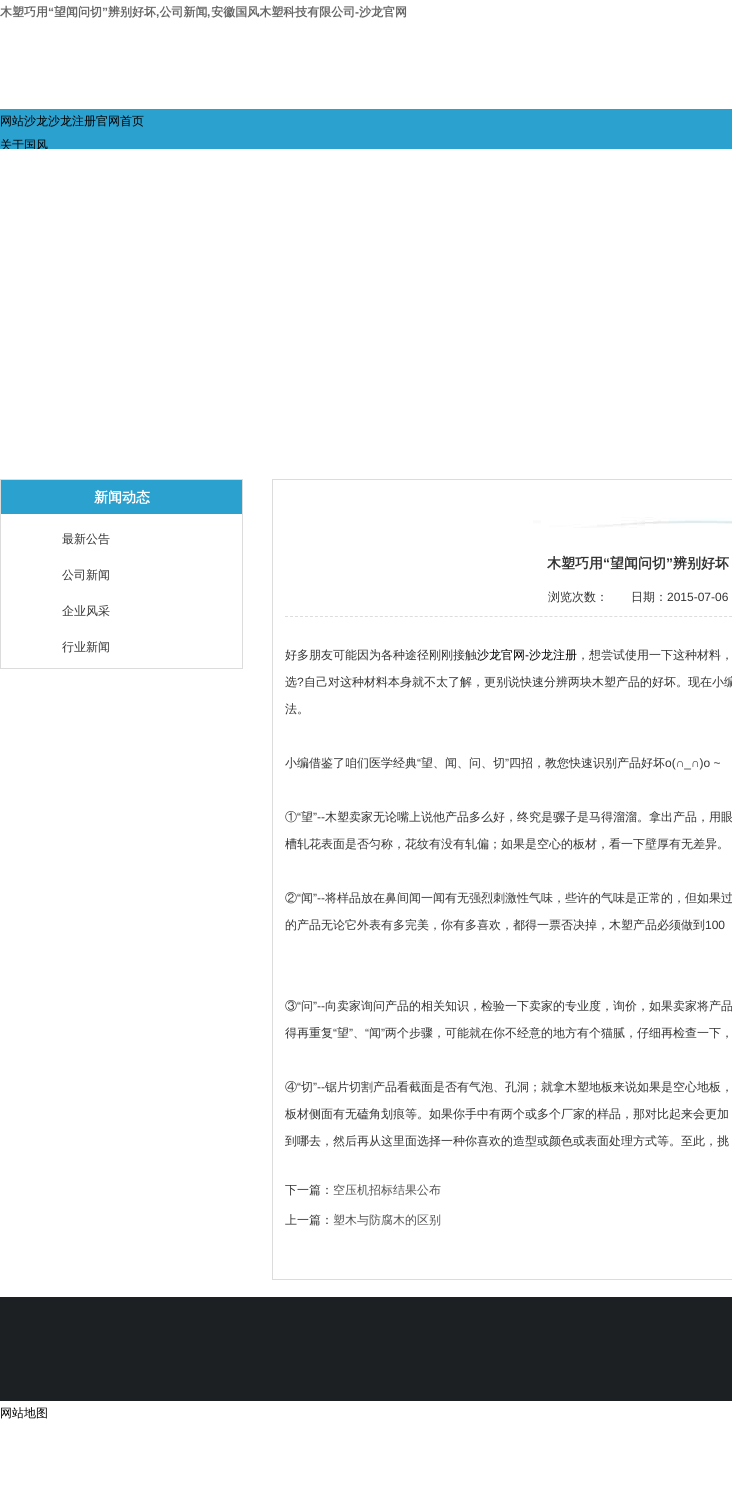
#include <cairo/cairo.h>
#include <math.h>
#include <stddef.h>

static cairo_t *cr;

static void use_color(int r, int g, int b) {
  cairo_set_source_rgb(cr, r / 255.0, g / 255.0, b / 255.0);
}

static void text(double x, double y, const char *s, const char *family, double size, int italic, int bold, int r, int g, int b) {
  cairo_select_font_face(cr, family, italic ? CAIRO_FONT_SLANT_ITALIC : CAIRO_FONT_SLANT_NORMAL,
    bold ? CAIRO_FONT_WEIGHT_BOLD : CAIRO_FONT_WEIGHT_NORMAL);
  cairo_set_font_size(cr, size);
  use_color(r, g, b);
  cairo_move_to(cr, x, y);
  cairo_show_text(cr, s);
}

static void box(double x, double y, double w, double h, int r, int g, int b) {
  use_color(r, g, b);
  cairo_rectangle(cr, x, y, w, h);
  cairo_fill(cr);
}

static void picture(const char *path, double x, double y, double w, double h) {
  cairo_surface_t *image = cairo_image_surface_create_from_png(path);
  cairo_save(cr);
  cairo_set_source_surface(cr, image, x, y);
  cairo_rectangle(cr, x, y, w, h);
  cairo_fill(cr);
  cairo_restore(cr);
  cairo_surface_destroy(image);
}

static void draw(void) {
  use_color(255, 255, 255);
  cairo_paint(cr);
  box(0, 109, 732, 40, 43, 161, 207);
  cairo_rectangle(cr, 0.5, 479.5, 242, 189);
  use_color(220, 220, 220);
  cairo_set_line_width(cr, 1);
  cairo_stroke(cr);
  box(1, 480, 241, 34, 43, 161, 207);
  cairo_rectangle(cr, 272.5, 479.5, 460, 800);
  use_color(220, 220, 220);
  cairo_stroke(cr);
  picture("img_01.png", 533, 517, 199, 11);
  cairo_new_path(cr);
  cairo_move_to(cr, 285, 616.5);
  cairo_line_to(cr, 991, 616.5);
  use_color(221, 221, 221);
  cairo_set_dash(cr, (double[]){3, 1.99}, 2, 0);
  cairo_stroke(cr);
  box(0, 1297, 732, 104, 28, 32, 35);
  text(0, 16, "木塑巧用", "WenQuanYi Zen Hei", 12, 0, 1, 102, 102, 102);
  text(48, 16, "“", "Liberation Sans", 12, 0, 1, 102, 102, 102);
  text(54, 16, "望闻问切", "WenQuanYi Zen Hei", 12, 0, 1, 102, 102, 102);
  text(102, 16, "”", "Liberation Sans", 12, 0, 1, 102, 102, 102);
  text(108, 16, "辨别好坏 公司新闻 安徽国风木塑科技有限公司", "WenQuanYi Zen Hei", 12, 0, 1, 102, 102, 102);
  text(355, 16, "-", "Liberation Sans", 12, 0, 1, 102, 102, 102);
  text(359, 16, "沙龙官网", "WenQuanYi Zen Hei", 12, 0, 1, 102, 102, 102);
  text(156, 16, ",", "Liberation Sans", 12, 0, 1, 102, 102, 102);
  text(207, 16, ",", "Liberation Sans", 12, 0, 1, 102, 102, 102);
  text(0, 125, "网站沙龙沙龙注册官网首页", "WenQuanYi Zen Hei Medium", 12, 0, 0, 0, 0, 0);
  cairo_save(cr);
  cairo_rectangle(cr, 0, 109, 732, 40);
  cairo_clip(cr);
  text(0, 149, "关于国风", "WenQuanYi Zen Hei Medium", 12, 0, 0, 0, 0, 0);
  cairo_restore(cr);
  text(94, 502, "新闻动态", "WenQuanYi Zen Hei", 14, 0, 1, 255, 255, 255);
  text(62, 543, "最新公告", "WenQuanYi Zen Hei Medium", 12, 0, 0, 51, 51, 51);
  text(62, 579, "公司新闻", "WenQuanYi Zen Hei Medium", 12, 0, 0, 51, 51, 51);
  text(62, 615, "企业风采", "WenQuanYi Zen Hei Medium", 12, 0, 0, 51, 51, 51);
  text(62, 651, "行业新闻", "WenQuanYi Zen Hei Medium", 12, 0, 0, 51, 51, 51);
  text(547, 568, "木塑巧用", "WenQuanYi Zen Hei", 14, 0, 1, 51, 51, 51);
  text(603, 568, "“", "Liberation Sans", 14, 0, 1, 51, 51, 51);
  text(610, 568, "望闻问切", "WenQuanYi Zen Hei", 14, 0, 1, 51, 51, 51);
  text(666, 568, "”", "Liberation Sans", 14, 0, 1, 51, 51, 51);
  text(673, 568, "辨别好坏", "WenQuanYi Zen Hei", 14, 0, 1, 51, 51, 51);
  text(548, 601, "浏览次数：", "WenQuanYi Zen Hei Medium", 12, 0, 0, 51, 51, 51);
  text(631, 601, "日期：", "WenQuanYi Zen Hei Medium", 12, 0, 0, 51, 51, 51);
  text(667, 601, "2015-07-06", "Liberation Sans", 12, 0, 0, 51, 51, 51);
  text(285, 659, "好多朋友可能因为各种途径刚刚接触", "WenQuanYi Zen Hei Medium", 12, 0, 0, 51, 51, 51);
  text(477, 659, "沙龙官网", "WenQuanYi Zen Hei Medium", 12, 0, 0, 0, 0, 0);
  text(525, 659, "-", "Liberation Sans", 12, 0, 0, 0, 0, 0);
  text(529, 659, "沙龙注册", "WenQuanYi Zen Hei Medium", 12, 0, 0, 0, 0, 0);
  text(577, 659, "，想尝试使用一下这种材料，", "WenQuanYi Zen Hei Medium", 12, 0, 0, 51, 51, 51);
  text(285, 686, "选", "WenQuanYi Zen Hei Medium", 12, 0, 0, 51, 51, 51);
  text(297, 686, "?", "Liberation Sans", 12, 0, 0, 51, 51, 51);
  text(304, 686, "自己对这种材料本身就不太了解，更别说快速分辨两块木塑产品的好坏。现在小编", "WenQuanYi Zen Hei Medium", 12, 0, 0, 51, 51, 51);
  text(285, 713, "法。", "WenQuanYi Zen Hei Medium", 12, 0, 0, 51, 51, 51);
  text(285, 767, "小编借鉴了咱们医学经典", "WenQuanYi Zen Hei Medium", 12, 0, 0, 51, 51, 51);
  text(417, 767, "“", "Liberation Sans", 12, 0, 0, 51, 51, 51);
  text(421, 767, "望、闻、问、切", "WenQuanYi Zen Hei Medium", 12, 0, 0, 51, 51, 51);
  text(505, 767, "”", "Liberation Sans", 12, 0, 0, 51, 51, 51);
  text(509, 767, "四招，教您快速识别产品好坏", "WenQuanYi Zen Hei Medium", 12, 0, 0, 51, 51, 51);
  text(665, 767, "o(∩_∩)o ~", "Liberation Sans", 12, 0, 0, 51, 51, 51);
  text(285, 821, "①", "WenQuanYi Zen Hei Medium", 12, 0, 0, 51, 51, 51);
  text(297, 821, "“", "Liberation Sans", 12, 0, 0, 51, 51, 51);
  text(301, 821, "望", "WenQuanYi Zen Hei Medium", 12, 0, 0, 51, 51, 51);
  text(313, 821, "”--", "Liberation Sans", 12, 0, 0, 51, 51, 51);
  text(325, 821, "木塑卖家无论嘴上说他产品多么好，终究是骡子是马得溜溜。拿出产品，用眼", "WenQuanYi Zen Hei Medium", 12, 0, 0, 51, 51, 51);
  text(285, 848, "槽轧花表面是否匀称，花纹有没有轧偏；如果是空心的板材，看一下壁厚有无差异。", "WenQuanYi Zen Hei Medium", 12, 0, 0, 51, 51, 51);
  text(285, 902, "②", "WenQuanYi Zen Hei Medium", 12, 0, 0, 51, 51, 51);
  text(297, 902, "“", "Liberation Sans", 12, 0, 0, 51, 51, 51);
  text(301, 902, "闻", "WenQuanYi Zen Hei Medium", 12, 0, 0, 51, 51, 51);
  text(313, 902, "”--", "Liberation Sans", 12, 0, 0, 51, 51, 51);
  text(325, 902, "将样品放在鼻间闻一闻有无强烈刺激性气味，些许的气味是正常的，但如果过", "WenQuanYi Zen Hei Medium", 12, 0, 0, 51, 51, 51);
  text(285, 929, "的产品无论它外表有多完美，你有多喜欢，都得一票否决掉，木塑产品必须做到", "WenQuanYi Zen Hei Medium", 12, 0, 0, 51, 51, 51);
  text(705, 929, "100", "Liberation Sans", 12, 0, 0, 51, 51, 51);
  text(285, 1010, "③", "WenQuanYi Zen Hei Medium", 12, 0, 0, 51, 51, 51);
  text(297, 1010, "“", "Liberation Sans", 12, 0, 0, 51, 51, 51);
  text(301, 1010, "问", "WenQuanYi Zen Hei Medium", 12, 0, 0, 51, 51, 51);
  text(313, 1010, "”--", "Liberation Sans", 12, 0, 0, 51, 51, 51);
  text(325, 1010, "向卖家询问产品的相关知识，检验一下卖家的专业度，询价，如果卖家将产品", "WenQuanYi Zen Hei Medium", 12, 0, 0, 51, 51, 51);
  text(285, 1037, "得再重复", "WenQuanYi Zen Hei Medium", 12, 0, 0, 51, 51, 51);
  text(333, 1037, "“", "Liberation Sans", 12, 0, 0, 51, 51, 51);
  text(337, 1037, "望", "WenQuanYi Zen Hei Medium", 12, 0, 0, 51, 51, 51);
  text(349, 1037, "”", "Liberation Sans", 12, 0, 0, 51, 51, 51);
  text(365, 1037, "“", "Liberation Sans", 12, 0, 0, 51, 51, 51);
  text(369, 1037, "闻", "WenQuanYi Zen Hei Medium", 12, 0, 0, 51, 51, 51);
  text(381, 1037, "”", "Liberation Sans", 12, 0, 0, 51, 51, 51);
  text(385, 1037, "两个步骤，可能就在你不经意的地方有个猫腻，仔细再检查一下，", "WenQuanYi Zen Hei Medium", 12, 0, 0, 51, 51, 51);
  text(353, 1037, "、", "WenQuanYi Zen Hei Medium", 12, 0, 0, 51, 51, 51);
  text(285, 1091, "④", "WenQuanYi Zen Hei Medium", 12, 0, 0, 51, 51, 51);
  text(297, 1091, "“", "Liberation Sans", 12, 0, 0, 51, 51, 51);
  text(301, 1091, "切", "WenQuanYi Zen Hei Medium", 12, 0, 0, 51, 51, 51);
  text(313, 1091, "”--", "Liberation Sans", 12, 0, 0, 51, 51, 51);
  text(325, 1091, "锯片切割产品看截面是否有气泡、孔洞；就拿木塑地板来说如果是空心地板，", "WenQuanYi Zen Hei Medium", 12, 0, 0, 51, 51, 51);
  text(285, 1118, "板材侧面有无磕角划痕等。如果你手中有两个或多个厂家的样品，那对比起来会更加", "WenQuanYi Zen Hei Medium", 12, 0, 0, 51, 51, 51);
  text(285, 1145, "到哪去，然后再从这里面选择一种你喜欢的造型或颜色或表面处理方式等。至此，挑", "WenQuanYi Zen Hei Medium", 12, 0, 0, 51, 51, 51);
  text(285, 1194, "下一篇：", "WenQuanYi Zen Hei Medium", 12, 0, 0, 51, 51, 51);
  text(333, 1194, "空压机招标结果公布", "WenQuanYi Zen Hei Medium", 12, 0, 0, 85, 85, 85);
  text(285, 1224, "上一篇：", "WenQuanYi Zen Hei Medium", 12, 0, 0, 51, 51, 51);
  text(333, 1224, "塑木与防腐木的区别", "WenQuanYi Zen Hei Medium", 12, 0, 0, 85, 85, 85);
  text(0, 1417, "网站地图", "WenQuanYi Zen Hei Medium", 12, 0, 0, 0, 0, 0);
}

int main(void) {
  cairo_surface_t *surface = cairo_image_surface_create(CAIRO_FORMAT_RGB24, 732, 1491);
  cr = cairo_create(surface);
  cairo_font_options_t *options = cairo_font_options_create();
  cairo_font_options_set_hint_metrics(options, CAIRO_HINT_METRICS_OFF);
  cairo_font_options_set_hint_style(options, CAIRO_HINT_STYLE_NONE);
  cairo_set_font_options(cr, options);
  cairo_set_miter_limit(cr, 4);
  draw();
  cairo_surface_write_to_png(surface, "out.png");
  cairo_font_options_destroy(options);
  cairo_destroy(cr);
  cairo_surface_destroy(surface);
  return 0;
}
